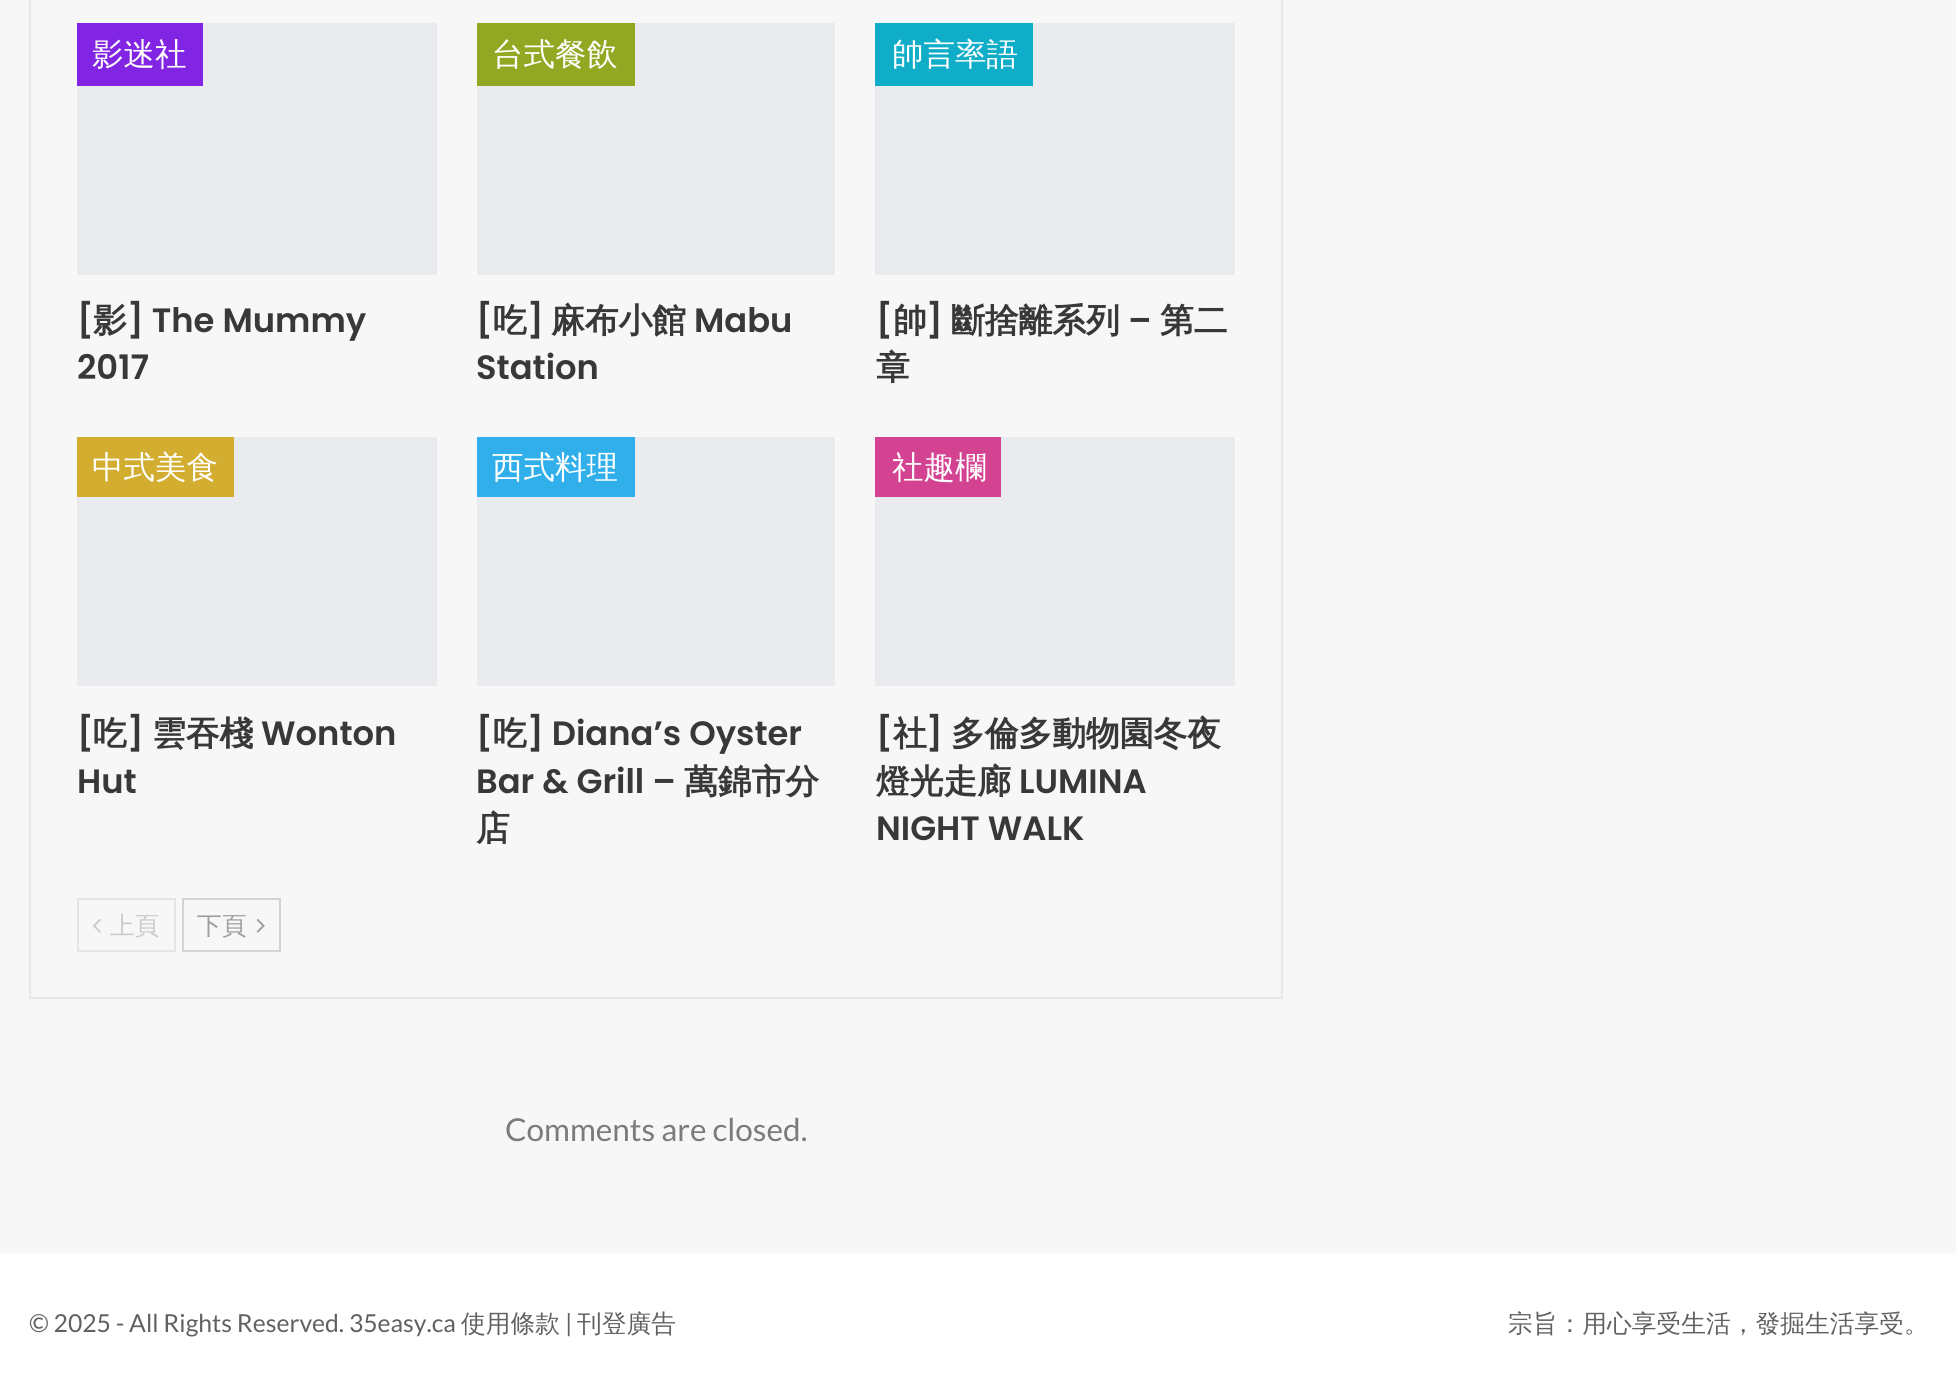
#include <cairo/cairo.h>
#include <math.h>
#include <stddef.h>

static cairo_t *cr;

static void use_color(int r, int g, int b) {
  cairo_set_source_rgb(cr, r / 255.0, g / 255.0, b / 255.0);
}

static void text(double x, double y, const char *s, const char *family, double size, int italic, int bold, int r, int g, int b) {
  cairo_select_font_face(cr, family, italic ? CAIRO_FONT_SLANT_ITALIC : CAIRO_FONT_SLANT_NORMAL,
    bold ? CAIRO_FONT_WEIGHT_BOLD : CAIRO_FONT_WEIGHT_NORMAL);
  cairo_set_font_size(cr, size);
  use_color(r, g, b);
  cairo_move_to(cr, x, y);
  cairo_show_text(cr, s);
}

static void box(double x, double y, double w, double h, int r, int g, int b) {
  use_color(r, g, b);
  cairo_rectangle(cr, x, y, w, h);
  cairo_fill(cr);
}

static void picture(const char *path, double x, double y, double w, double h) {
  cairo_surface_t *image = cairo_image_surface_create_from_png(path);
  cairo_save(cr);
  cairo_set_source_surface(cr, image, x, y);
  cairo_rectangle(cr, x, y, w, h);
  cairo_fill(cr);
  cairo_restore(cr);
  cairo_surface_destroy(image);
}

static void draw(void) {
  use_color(247, 247, 247);
  cairo_paint(cr);
  cairo_rectangle(cr, 30, -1, 1252, 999);
  use_color(232, 232, 232);
  cairo_stroke(cr);
  box(77, 23, 360, 252, 233, 235, 238);
  box(77, 23, 126, 63, 130, 36, 227);
  box(477, 23, 358, 252, 233, 235, 238);
  box(477, 23, 158, 63, 146, 168, 35);
  box(875, 23, 360, 252, 233, 235, 238);
  box(875, 23, 158, 63, 16, 173, 201);
  box(77, 437, 360, 249, 233, 235, 238);
  box(77, 437, 157, 60, 211, 173, 48);
  box(477, 437, 358, 249, 233, 235, 238);
  box(477, 437, 158, 60, 49, 175, 234);
  box(875, 437, 360, 249, 233, 235, 238);
  box(875, 437, 126, 60, 211, 67, 146);
  cairo_rectangle(cr, 78, 899, 97, 52);
  use_color(229, 229, 229);
  cairo_stroke(cr);
  picture("img_01.png", 93, 919, 8, 14);
  cairo_rectangle(cr, 183, 899, 97, 52);
  use_color(211, 211, 211);
  cairo_stroke(cr);
  picture("img_02.png", 256, 919, 9, 14);
  box(0, 1253, 1956, 139, 255, 255, 255);
  text(92, 65, "影迷社", "WenQuanYi Zen Hei Medium", 31.5, 0, 0, 255, 255, 255);
  text(77, 332, "[", "Poppins SemiBold", 33.75, 0, 0, 56, 56, 56);
  text(93, 332, "影", "WenQuanYi Zen Hei", 33.75, 0, 1, 56, 56, 56);
  text(127, 332, "] The Mummy", "Poppins SemiBold", 33.75, 0, 0, 56, 56, 56);
  text(77, 379, "2017", "Poppins SemiBold", 33.75, 0, 0, 56, 56, 56);
  text(492, 65, "台式餐飲", "WenQuanYi Zen Hei Medium", 31.5, 0, 0, 255, 255, 255);
  text(476, 332, "[", "Poppins SemiBold", 33.75, 0, 0, 56, 56, 56);
  text(493, 332, "吃", "WenQuanYi Zen Hei", 33.75, 0, 1, 56, 56, 56);
  text(527, 332, "]", "Poppins SemiBold", 33.75, 0, 0, 56, 56, 56);
  text(551, 332, "麻布小館", "WenQuanYi Zen Hei", 33.75, 0, 1, 56, 56, 56);
  text(694, 332, "Mabu", "Poppins SemiBold", 33.75, 0, 0, 56, 56, 56);
  text(476, 379, "Station", "Poppins SemiBold", 33.75, 0, 0, 56, 56, 56);
  text(892, 65, "帥言率語", "WenQuanYi Zen Hei Medium", 31.5, 0, 0, 255, 255, 255);
  text(876, 332, "[", "Poppins SemiBold", 33.75, 0, 0, 56, 56, 56);
  text(893, 332, "帥", "WenQuanYi Zen Hei", 33.75, 0, 1, 56, 56, 56);
  text(926, 332, "]", "Poppins SemiBold", 33.75, 0, 0, 56, 56, 56);
  text(951, 332, "斷捨離系列", "WenQuanYi Zen Hei", 33.75, 0, 1, 56, 56, 56);
  text(1128, 332, "–", "Poppins SemiBold", 33.75, 0, 0, 56, 56, 56);
  text(1160, 332, "第二", "WenQuanYi Zen Hei", 33.75, 0, 1, 56, 56, 56);
  text(876, 379, "章", "WenQuanYi Zen Hei", 33.75, 0, 1, 56, 56, 56);
  text(92, 478, "中式美食", "WenQuanYi Zen Hei Medium", 31.5, 0, 0, 255, 255, 255);
  text(77, 745, "[", "Poppins SemiBold", 33.75, 0, 0, 56, 56, 56);
  text(93, 745, "吃", "WenQuanYi Zen Hei", 33.75, 0, 1, 56, 56, 56);
  text(127, 745, "]", "Poppins SemiBold", 33.75, 0, 0, 56, 56, 56);
  text(152, 745, "雲吞棧", "WenQuanYi Zen Hei", 33.75, 0, 1, 56, 56, 56);
  text(261, 745, "Wonton", "Poppins SemiBold", 33.75, 0, 0, 56, 56, 56);
  text(77, 793, "Hut", "Poppins SemiBold", 33.75, 0, 0, 56, 56, 56);
  text(492, 478, "西式料理", "WenQuanYi Zen Hei Medium", 31.5, 0, 0, 255, 255, 255);
  text(476, 745, "[", "Poppins SemiBold", 33.75, 0, 0, 56, 56, 56);
  text(493, 745, "吃", "WenQuanYi Zen Hei", 33.75, 0, 1, 56, 56, 56);
  text(527, 745, "] Diana’s Oyster", "Poppins SemiBold", 33.75, 0, 0, 56, 56, 56);
  text(476, 793, "Bar & Grill –", "Poppins SemiBold", 33.75, 0, 0, 56, 56, 56);
  text(684, 793, "萬錦市分", "WenQuanYi Zen Hei", 33.75, 0, 1, 56, 56, 56);
  text(476, 840, "店", "WenQuanYi Zen Hei", 33.75, 0, 1, 56, 56, 56);
  text(892, 478, "社趣欄", "WenQuanYi Zen Hei Medium", 31.5, 0, 0, 255, 255, 255);
  text(876, 745, "[", "Poppins SemiBold", 33.75, 0, 0, 56, 56, 56);
  text(893, 745, "社", "WenQuanYi Zen Hei", 33.75, 0, 1, 56, 56, 56);
  text(926, 745, "]", "Poppins SemiBold", 33.75, 0, 0, 56, 56, 56);
  text(951, 745, "多倫多動物園冬夜", "WenQuanYi Zen Hei", 33.75, 0, 1, 56, 56, 56);
  text(876, 793, "燈光走廊", "WenQuanYi Zen Hei", 33.75, 0, 1, 56, 56, 56);
  text(1019, 793, "LUMINA", "Poppins SemiBold", 33.75, 0, 0, 56, 56, 56);
  text(876, 840, "NIGHT WALK", "Poppins SemiBold", 33.75, 0, 0, 56, 56, 56);
  text(110, 934, "上頁", "WenQuanYi Zen Hei Medium", 24.75, 0, 0, 202, 202, 202);
  text(197, 934, "下頁", "WenQuanYi Zen Hei Medium", 24.75, 0, 0, 157, 157, 157);
  text(505, 1141, "Comments are closed.", "Lato", 31.5, 0, 0, 123, 123, 123);
  text(29, 1332, "© 2025 - All Rights Reserved. 35easy.ca", "Lato", 24.75, 0, 0, 97, 97, 97);
  text(461, 1332, "使用條款", "WenQuanYi Zen Hei Medium", 24.75, 0, 0, 97, 97, 97);
  text(565, 1332, "|", "Lato", 24.75, 0, 0, 97, 97, 97);
  text(577, 1332, "刊登廣告", "WenQuanYi Zen Hei Medium", 24.75, 0, 0, 97, 97, 97);
  text(1508, 1332, "宗旨：用心享受生活，發掘生活享受。", "WenQuanYi Zen Hei Medium", 24.75, 0, 0, 97, 97, 97);
}

int main(void) {
  cairo_surface_t *surface = cairo_image_surface_create(CAIRO_FORMAT_RGB24, 1956, 1392);
  cr = cairo_create(surface);
  cairo_font_options_t *options = cairo_font_options_create();
  cairo_font_options_set_hint_metrics(options, CAIRO_HINT_METRICS_OFF);
  cairo_font_options_set_hint_style(options, CAIRO_HINT_STYLE_NONE);
  cairo_set_font_options(cr, options);
  cairo_set_miter_limit(cr, 4);
  draw();
  cairo_surface_write_to_png(surface, "out.png");
  cairo_font_options_destroy(options);
  cairo_destroy(cr);
  cairo_surface_destroy(surface);
  return 0;
}
